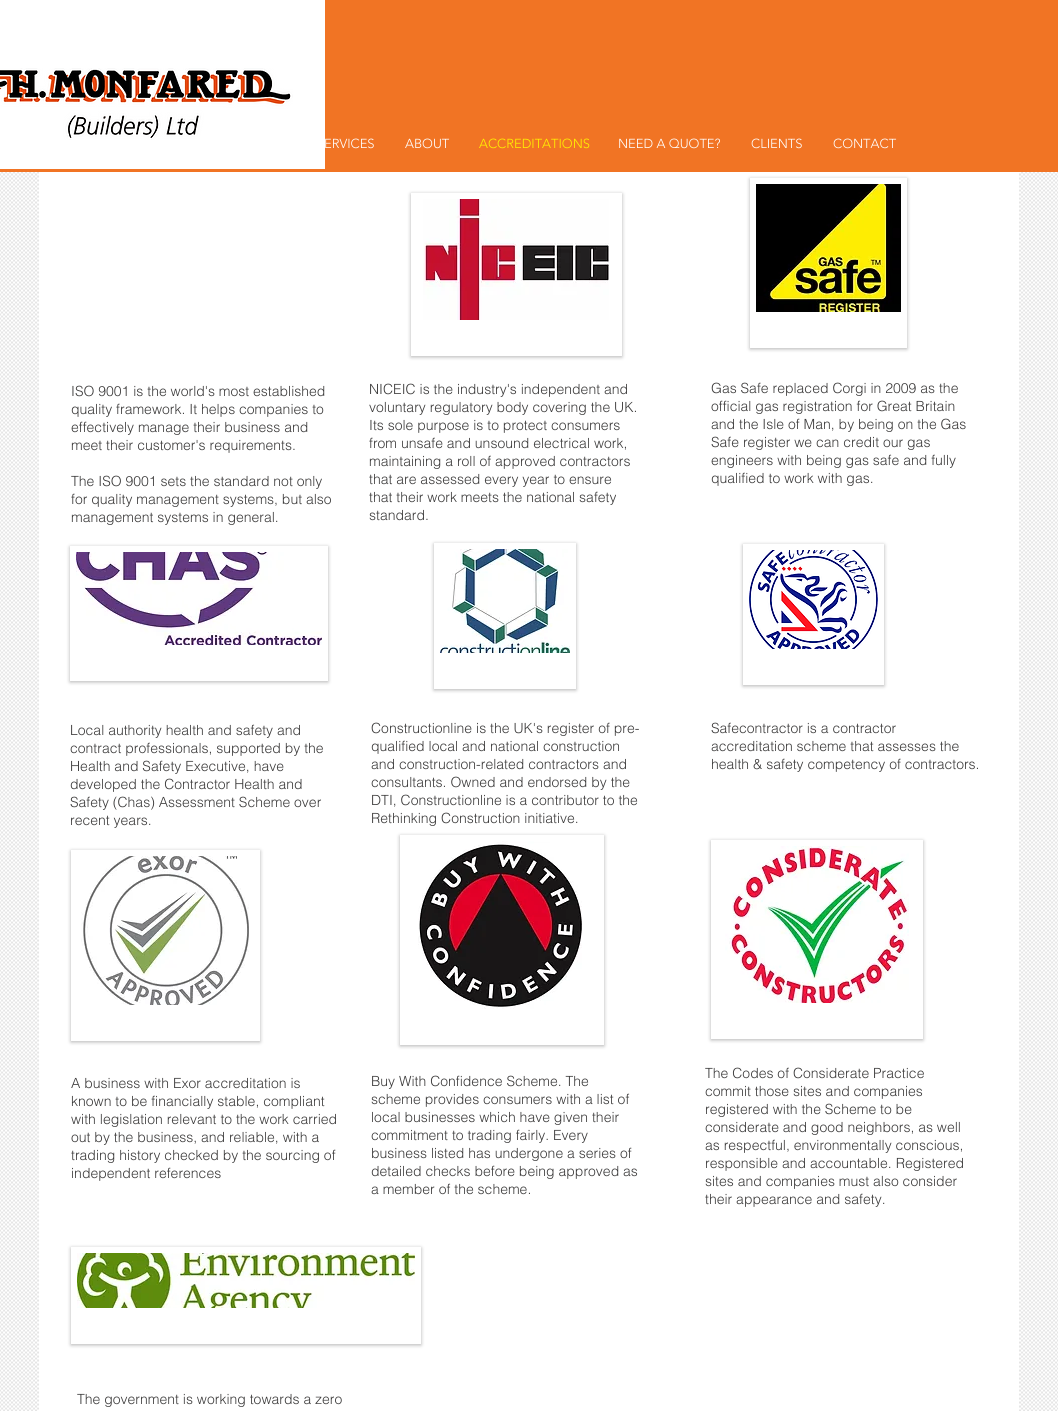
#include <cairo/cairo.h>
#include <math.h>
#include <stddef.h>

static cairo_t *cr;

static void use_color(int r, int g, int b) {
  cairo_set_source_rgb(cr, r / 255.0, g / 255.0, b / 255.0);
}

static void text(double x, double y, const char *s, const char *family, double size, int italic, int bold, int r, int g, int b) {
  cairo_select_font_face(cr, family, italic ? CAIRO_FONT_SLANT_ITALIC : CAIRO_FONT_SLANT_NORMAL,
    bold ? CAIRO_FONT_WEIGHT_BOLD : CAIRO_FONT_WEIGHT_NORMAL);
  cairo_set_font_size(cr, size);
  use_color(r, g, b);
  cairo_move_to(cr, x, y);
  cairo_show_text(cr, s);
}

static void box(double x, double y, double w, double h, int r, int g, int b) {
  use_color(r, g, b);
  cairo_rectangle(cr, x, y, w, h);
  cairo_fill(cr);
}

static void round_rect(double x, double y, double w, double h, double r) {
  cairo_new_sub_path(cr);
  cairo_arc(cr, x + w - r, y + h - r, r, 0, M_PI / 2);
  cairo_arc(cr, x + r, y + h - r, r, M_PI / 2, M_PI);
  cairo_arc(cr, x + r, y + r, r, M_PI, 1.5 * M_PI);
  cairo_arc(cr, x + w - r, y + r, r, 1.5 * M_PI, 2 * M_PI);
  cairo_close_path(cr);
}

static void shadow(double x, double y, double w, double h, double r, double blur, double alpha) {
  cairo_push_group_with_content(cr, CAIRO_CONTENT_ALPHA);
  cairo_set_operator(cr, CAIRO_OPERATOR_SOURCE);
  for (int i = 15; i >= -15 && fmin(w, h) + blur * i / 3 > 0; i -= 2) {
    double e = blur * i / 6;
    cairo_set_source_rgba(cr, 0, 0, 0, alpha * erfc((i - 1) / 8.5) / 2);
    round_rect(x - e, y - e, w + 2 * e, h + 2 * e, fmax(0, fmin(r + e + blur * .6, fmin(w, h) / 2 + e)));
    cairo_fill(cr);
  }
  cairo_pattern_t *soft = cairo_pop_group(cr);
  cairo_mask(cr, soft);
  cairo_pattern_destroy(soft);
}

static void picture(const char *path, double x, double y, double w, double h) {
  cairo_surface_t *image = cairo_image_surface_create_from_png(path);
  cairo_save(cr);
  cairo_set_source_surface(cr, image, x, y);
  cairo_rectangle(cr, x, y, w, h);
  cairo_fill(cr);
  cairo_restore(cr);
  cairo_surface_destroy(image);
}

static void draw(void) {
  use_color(255, 255, 255);
  cairo_paint(cr);
  box(0, 0, 1058, 172, 241, 116, 36);
  box(0, 0, 325, 169, 255, 255, 255);
  picture("img_01.png", 0, 68, 293, 72);
  picture("img_11.png", 0, 172, 1058, 1239);
  box(39, 172, 980, 1239, 255, 255, 255);
  cairo_save(cr);
  cairo_set_fill_rule(cr, CAIRO_FILL_RULE_EVEN_ODD);
  cairo_new_path(cr);
  cairo_move_to(cr, 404, 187);
  cairo_line_to(cr, 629, 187);
  cairo_line_to(cr, 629, 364);
  cairo_line_to(cr, 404, 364);
  cairo_close_path(cr);
  cairo_move_to(cr, 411, 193);
  cairo_line_to(cr, 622, 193);
  cairo_line_to(cr, 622, 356);
  cairo_line_to(cr, 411, 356);
  cairo_close_path(cr);
  cairo_clip(cr);
  use_color(0, 0, 0);
  shadow(411, 194, 211, 163, 0, 2, 0.3);
  cairo_restore(cr);
  picture("img_02.png", 423, 199, 186, 121);
  cairo_save(cr);
  cairo_set_fill_rule(cr, CAIRO_FILL_RULE_EVEN_ODD);
  cairo_new_path(cr);
  cairo_move_to(cr, 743, 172);
  cairo_line_to(cr, 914, 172);
  cairo_line_to(cr, 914, 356);
  cairo_line_to(cr, 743, 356);
  cairo_close_path(cr);
  cairo_move_to(cr, 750, 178);
  cairo_line_to(cr, 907, 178);
  cairo_line_to(cr, 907, 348);
  cairo_line_to(cr, 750, 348);
  cairo_close_path(cr);
  cairo_clip(cr);
  use_color(0, 0, 0);
  shadow(750, 179, 157, 170, 0, 2, 0.3);
  cairo_restore(cr);
  picture("img_03.png", 756, 184, 145, 128);
  cairo_save(cr);
  cairo_set_fill_rule(cr, CAIRO_FILL_RULE_EVEN_ODD);
  cairo_new_path(cr);
  cairo_move_to(cr, 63, 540);
  cairo_line_to(cr, 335, 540);
  cairo_line_to(cr, 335, 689);
  cairo_line_to(cr, 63, 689);
  cairo_close_path(cr);
  cairo_move_to(cr, 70, 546);
  cairo_line_to(cr, 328, 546);
  cairo_line_to(cr, 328, 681);
  cairo_line_to(cr, 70, 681);
  cairo_close_path(cr);
  cairo_clip(cr);
  use_color(0, 0, 0);
  shadow(70, 547, 258, 135, 0, 2, 0.3);
  cairo_restore(cr);
  picture("img_04.png", 76, 552, 246, 93);
  cairo_save(cr);
  cairo_set_fill_rule(cr, CAIRO_FILL_RULE_EVEN_ODD);
  cairo_new_path(cr);
  cairo_move_to(cr, 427, 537);
  cairo_line_to(cr, 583, 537);
  cairo_line_to(cr, 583, 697);
  cairo_line_to(cr, 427, 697);
  cairo_close_path(cr);
  cairo_move_to(cr, 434, 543);
  cairo_line_to(cr, 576, 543);
  cairo_line_to(cr, 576, 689);
  cairo_line_to(cr, 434, 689);
  cairo_close_path(cr);
  cairo_clip(cr);
  use_color(0, 0, 0);
  shadow(434, 544, 142, 146, 0, 2, 0.3);
  cairo_restore(cr);
  picture("img_05.png", 440, 549, 130, 104);
  cairo_save(cr);
  cairo_set_fill_rule(cr, CAIRO_FILL_RULE_EVEN_ODD);
  cairo_new_path(cr);
  cairo_move_to(cr, 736, 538);
  cairo_line_to(cr, 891, 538);
  cairo_line_to(cr, 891, 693);
  cairo_line_to(cr, 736, 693);
  cairo_close_path(cr);
  cairo_move_to(cr, 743, 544);
  cairo_line_to(cr, 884, 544);
  cairo_line_to(cr, 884, 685);
  cairo_line_to(cr, 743, 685);
  cairo_close_path(cr);
  cairo_clip(cr);
  use_color(0, 0, 0);
  shadow(743, 545, 141, 141, 0, 2, 0.3);
  cairo_restore(cr);
  picture("img_06.png", 749, 550, 129, 99);
  cairo_save(cr);
  cairo_set_fill_rule(cr, CAIRO_FILL_RULE_EVEN_ODD);
  cairo_new_path(cr);
  cairo_move_to(cr, 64, 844);
  cairo_line_to(cr, 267, 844);
  cairo_line_to(cr, 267, 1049);
  cairo_line_to(cr, 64, 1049);
  cairo_close_path(cr);
  cairo_move_to(cr, 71, 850);
  cairo_line_to(cr, 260, 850);
  cairo_line_to(cr, 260, 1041);
  cairo_line_to(cr, 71, 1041);
  cairo_close_path(cr);
  cairo_clip(cr);
  use_color(0, 0, 0);
  shadow(71, 851, 189, 191, 0, 2, 0.3);
  cairo_restore(cr);
  picture("img_07.png", 81, 856, 168, 149);
  cairo_save(cr);
  cairo_set_fill_rule(cr, CAIRO_FILL_RULE_EVEN_ODD);
  cairo_new_path(cr);
  cairo_move_to(cr, 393, 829);
  cairo_line_to(cr, 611, 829);
  cairo_line_to(cr, 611, 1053);
  cairo_line_to(cr, 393, 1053);
  cairo_close_path(cr);
  cairo_move_to(cr, 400, 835);
  cairo_line_to(cr, 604, 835);
  cairo_line_to(cr, 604, 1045);
  cairo_line_to(cr, 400, 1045);
  cairo_close_path(cr);
  cairo_clip(cr);
  use_color(0, 0, 0);
  shadow(400, 836, 204, 210, 0, 2, 0.3);
  cairo_restore(cr);
  picture("img_08.png", 418, 841, 164, 168);
  cairo_save(cr);
  cairo_set_fill_rule(cr, CAIRO_FILL_RULE_EVEN_ODD);
  cairo_new_path(cr);
  cairo_move_to(cr, 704, 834);
  cairo_line_to(cr, 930, 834);
  cairo_line_to(cr, 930, 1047);
  cairo_line_to(cr, 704, 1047);
  cairo_close_path(cr);
  cairo_move_to(cr, 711, 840);
  cairo_line_to(cr, 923, 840);
  cairo_line_to(cr, 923, 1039);
  cairo_line_to(cr, 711, 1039);
  cairo_close_path(cr);
  cairo_clip(cr);
  use_color(0, 0, 0);
  shadow(711, 841, 212, 199, 0, 2, 0.3);
  cairo_restore(cr);
  picture("img_09.png", 725, 846, 184, 157);
  cairo_save(cr);
  cairo_set_fill_rule(cr, CAIRO_FILL_RULE_EVEN_ODD);
  cairo_new_path(cr);
  cairo_move_to(cr, 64, 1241);
  cairo_line_to(cr, 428, 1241);
  cairo_line_to(cr, 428, 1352);
  cairo_line_to(cr, 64, 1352);
  cairo_close_path(cr);
  cairo_move_to(cr, 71, 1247);
  cairo_line_to(cr, 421, 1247);
  cairo_line_to(cr, 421, 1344);
  cairo_line_to(cr, 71, 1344);
  cairo_close_path(cr);
  cairo_clip(cr);
  use_color(0, 0, 0);
  shadow(71, 1248, 350, 97, 0, 2, 0.3);
  cairo_restore(cr);
  picture("img_10.png", 77, 1253, 338, 55);
  text(324, 148, "ERVICES", "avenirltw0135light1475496 Light", 13, 0, 0, 255, 255, 255);
  text(405, 148, "ABOUT", "avenirltw0135light1475496 Light", 13, 0, 0, 255, 255, 255);
  text(479, 148, "ACCREDITATIONS", "avenirltw0135light1475496 Light", 13, 0, 0, 255, 242, 0);
  text(618, 148, "NEED A QUOTE?", "avenirltw0135light1475496 Light", 13, 0, 0, 255, 255, 255);
  text(751, 148, "CLIENTS", "avenirltw0135light1475496 Light", 13, 0, 0, 255, 255, 255);
  text(833, 148, "CONTACT", "avenirltw0135light1475496 Light", 13, 0, 0, 255, 255, 255);
  text(71, 396, "ISO 9001 is the world's most established", "helvetica Light", 14, 0, 0, 59, 58, 58);
  text(71, 414, "quality framework. It helps companies to", "helvetica Light", 14, 0, 0, 59, 58, 58);
  text(71, 432, "effectively manage their business and", "helvetica Light", 14, 0, 0, 59, 58, 58);
  text(71, 450, "meet their customer's requirements.", "helvetica Light", 14, 0, 0, 59, 58, 58);
  text(71, 486, "The ISO 9001 sets the standard not only", "helvetica Light", 14, 0, 0, 59, 58, 58);
  text(71, 504, "for quality management systems, but also", "helvetica Light", 14, 0, 0, 59, 58, 58);
  text(71, 522, "management systems in general.", "helvetica Light", 14, 0, 0, 59, 58, 58);
  text(369, 394, "NICEIC is the industry's independent and", "helvetica Light", 14, 0, 0, 59, 58, 58);
  text(369, 412, "voluntary regulatory body covering the UK.", "helvetica Light", 14, 0, 0, 59, 58, 58);
  text(369, 430, "Its sole purpose is to protect consumers", "helvetica Light", 14, 0, 0, 59, 58, 58);
  text(369, 448, "from unsafe and unsound electrical work,", "helvetica Light", 14, 0, 0, 59, 58, 58);
  text(369, 466, "maintaining a roll of approved contractors", "helvetica Light", 14, 0, 0, 59, 58, 58);
  text(369, 484, "that are assessed every year to ensure", "helvetica Light", 14, 0, 0, 59, 58, 58);
  text(369, 502, "that their work meets the national safety", "helvetica Light", 14, 0, 0, 59, 58, 58);
  text(369, 520, "standard.", "helvetica Light", 14, 0, 0, 59, 58, 58);
  text(711, 393, "Gas Safe replaced Corgi in 2009 as the", "helvetica Light", 14, 0, 0, 59, 58, 58);
  text(711, 411, "official gas registration for Great Britain", "helvetica Light", 14, 0, 0, 59, 58, 58);
  text(711, 429, "and the Isle of Man, by being on the Gas", "helvetica Light", 14, 0, 0, 59, 58, 58);
  text(711, 447, "Safe register we can credit our gas", "helvetica Light", 14, 0, 0, 59, 58, 58);
  text(711, 465, "engineers with being gas safe and fully", "helvetica Light", 14, 0, 0, 59, 58, 58);
  text(711, 483, "qualified to work with gas.", "helvetica Light", 14, 0, 0, 59, 58, 58);
  text(70, 735, "Local authority health and safety and", "helvetica Light", 14, 0, 0, 59, 58, 58);
  text(70, 753, "contract professionals, supported by the", "helvetica Light", 14, 0, 0, 59, 58, 58);
  text(70, 771, "Health and Safety Executive, have", "helvetica Light", 14, 0, 0, 59, 58, 58);
  text(70, 789, "developed the Contractor Health and", "helvetica Light", 14, 0, 0, 59, 58, 58);
  text(70, 807, "Safety (Chas) Assessment Scheme over", "helvetica Light", 14, 0, 0, 59, 58, 58);
  text(70, 825, "recent years.", "helvetica Light", 14, 0, 0, 59, 58, 58);
  text(371, 733, "Constructionline is the UK's register of pre-", "helvetica Light", 14, 0, 0, 59, 58, 58);
  text(371, 751, "qualified local and national construction", "helvetica Light", 14, 0, 0, 59, 58, 58);
  text(371, 769, "and construction-related contractors and", "helvetica Light", 14, 0, 0, 59, 58, 58);
  text(371, 787, "consultants. Owned and endorsed by the", "helvetica Light", 14, 0, 0, 59, 58, 58);
  text(371, 805, "DTI, Constructionline is a contributor to the", "helvetica Light", 14, 0, 0, 59, 58, 58);
  text(371, 823, "Rethinking Construction initiative.", "helvetica Light", 14, 0, 0, 59, 58, 58);
  text(711, 733, "Safecontractor is a contractor", "helvetica Light", 14, 0, 0, 59, 58, 58);
  text(711, 751, "accreditation scheme that assesses the", "helvetica Light", 14, 0, 0, 59, 58, 58);
  text(711, 769, "health & safety competency of contractors.", "helvetica Light", 14, 0, 0, 59, 58, 58);
  text(71, 1088, "A business with Exor accreditation is", "helvetica Light", 14, 0, 0, 59, 58, 58);
  text(71, 1106, "known to be financially stable, compliant", "helvetica Light", 14, 0, 0, 59, 58, 58);
  text(71, 1124, "with legislation relevant to the work carried", "helvetica Light", 14, 0, 0, 59, 58, 58);
  text(71, 1142, "out by the business, and reliable, with a", "helvetica Light", 14, 0, 0, 59, 58, 58);
  text(71, 1160, "trading history checked by the sourcing of", "helvetica Light", 14, 0, 0, 59, 58, 58);
  text(71, 1178, "independent references", "helvetica Light", 14, 0, 0, 59, 58, 58);
  text(371, 1086, "Buy With Confidence Scheme. The", "helvetica Light", 14, 0, 0, 59, 58, 58);
  text(371, 1104, "scheme provides consumers with a list of", "helvetica Light", 14, 0, 0, 59, 58, 58);
  text(371, 1122, "local businesses which have given their", "helvetica Light", 14, 0, 0, 59, 58, 58);
  text(371, 1140, "commitment to trading fairly. Every", "helvetica Light", 14, 0, 0, 59, 58, 58);
  text(371, 1158, "business listed has undergone a series of", "helvetica Light", 14, 0, 0, 59, 58, 58);
  text(371, 1176, "detailed checks before being approved as", "helvetica Light", 14, 0, 0, 59, 58, 58);
  text(371, 1194, "a member of the scheme.", "helvetica Light", 14, 0, 0, 59, 58, 58);
  text(705, 1078, "The Codes of Considerate Practice", "helvetica Light", 14, 0, 0, 59, 58, 58);
  text(705, 1096, "commit those sites and companies", "helvetica Light", 14, 0, 0, 59, 58, 58);
  text(705, 1114, "registered with the Scheme to be", "helvetica Light", 14, 0, 0, 59, 58, 58);
  text(705, 1132, "considerate and good neighbors, as well", "helvetica Light", 14, 0, 0, 59, 58, 58);
  text(705, 1150, "as respectful, environmentally conscious,", "helvetica Light", 14, 0, 0, 59, 58, 58);
  text(705, 1168, "responsible and accountable. Registered", "helvetica Light", 14, 0, 0, 59, 58, 58);
  text(705, 1186, "sites and companies must also consider", "helvetica Light", 14, 0, 0, 59, 58, 58);
  text(705, 1204, "their appearance and safety.", "helvetica Light", 14, 0, 0, 59, 58, 58);
  text(77, 1404, "The government is working towards a zero", "helvetica Light", 14, 0, 0, 59, 58, 58);
}

int main(void) {
  cairo_surface_t *surface = cairo_image_surface_create(CAIRO_FORMAT_RGB24, 1058, 1411);
  cr = cairo_create(surface);
  cairo_font_options_t *options = cairo_font_options_create();
  cairo_font_options_set_hint_metrics(options, CAIRO_HINT_METRICS_OFF);
  cairo_font_options_set_hint_style(options, CAIRO_HINT_STYLE_NONE);
  cairo_set_font_options(cr, options);
  cairo_set_miter_limit(cr, 4);
  draw();
  cairo_surface_write_to_png(surface, "out.png");
  cairo_font_options_destroy(options);
  cairo_destroy(cr);
  cairo_surface_destroy(surface);
  return 0;
}
